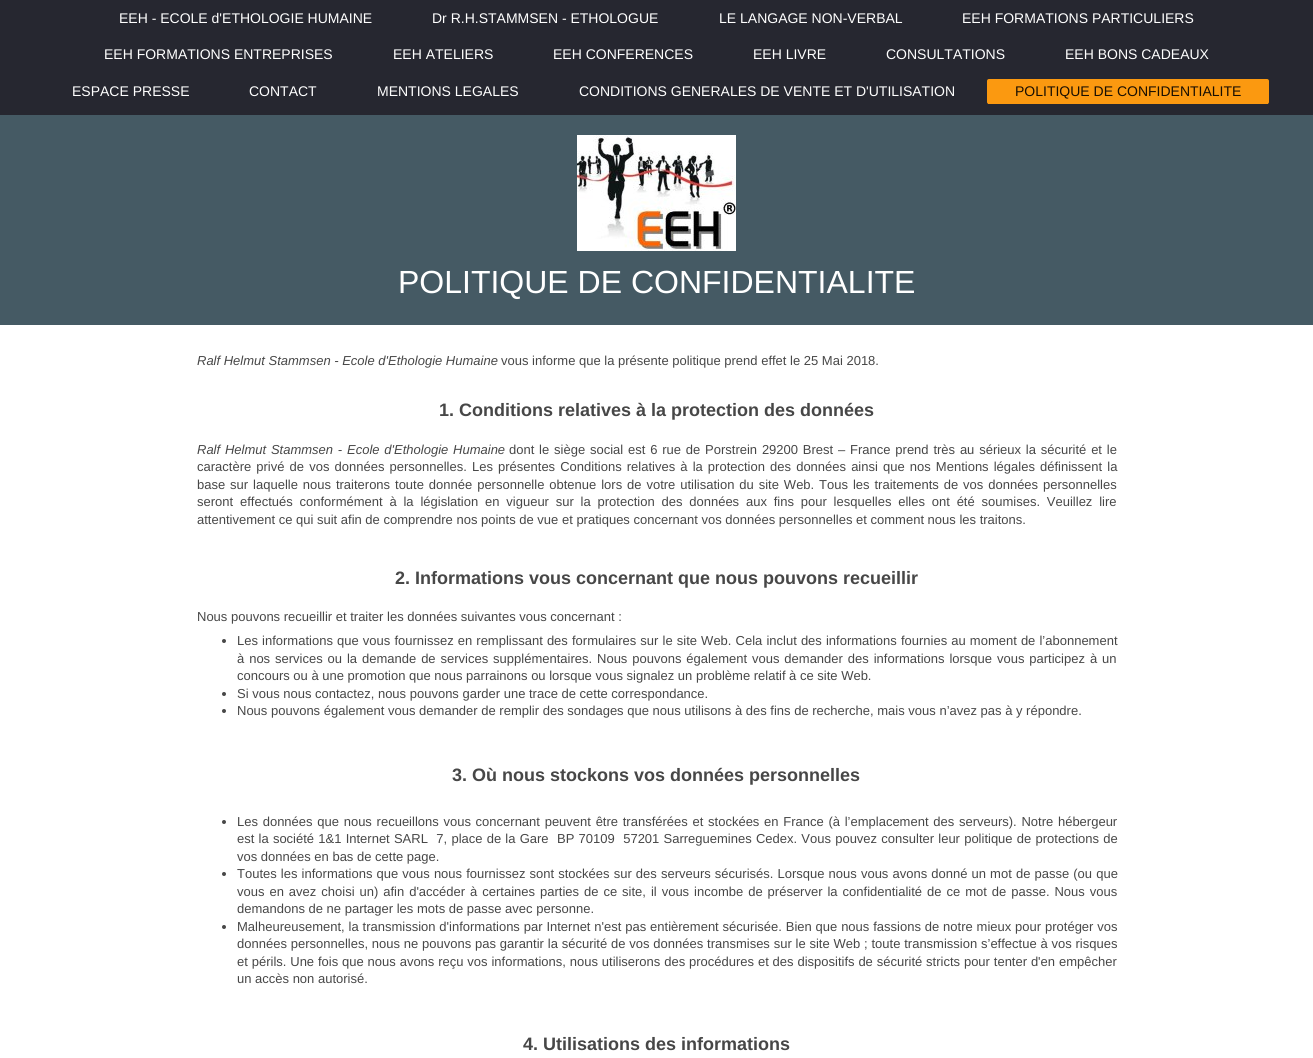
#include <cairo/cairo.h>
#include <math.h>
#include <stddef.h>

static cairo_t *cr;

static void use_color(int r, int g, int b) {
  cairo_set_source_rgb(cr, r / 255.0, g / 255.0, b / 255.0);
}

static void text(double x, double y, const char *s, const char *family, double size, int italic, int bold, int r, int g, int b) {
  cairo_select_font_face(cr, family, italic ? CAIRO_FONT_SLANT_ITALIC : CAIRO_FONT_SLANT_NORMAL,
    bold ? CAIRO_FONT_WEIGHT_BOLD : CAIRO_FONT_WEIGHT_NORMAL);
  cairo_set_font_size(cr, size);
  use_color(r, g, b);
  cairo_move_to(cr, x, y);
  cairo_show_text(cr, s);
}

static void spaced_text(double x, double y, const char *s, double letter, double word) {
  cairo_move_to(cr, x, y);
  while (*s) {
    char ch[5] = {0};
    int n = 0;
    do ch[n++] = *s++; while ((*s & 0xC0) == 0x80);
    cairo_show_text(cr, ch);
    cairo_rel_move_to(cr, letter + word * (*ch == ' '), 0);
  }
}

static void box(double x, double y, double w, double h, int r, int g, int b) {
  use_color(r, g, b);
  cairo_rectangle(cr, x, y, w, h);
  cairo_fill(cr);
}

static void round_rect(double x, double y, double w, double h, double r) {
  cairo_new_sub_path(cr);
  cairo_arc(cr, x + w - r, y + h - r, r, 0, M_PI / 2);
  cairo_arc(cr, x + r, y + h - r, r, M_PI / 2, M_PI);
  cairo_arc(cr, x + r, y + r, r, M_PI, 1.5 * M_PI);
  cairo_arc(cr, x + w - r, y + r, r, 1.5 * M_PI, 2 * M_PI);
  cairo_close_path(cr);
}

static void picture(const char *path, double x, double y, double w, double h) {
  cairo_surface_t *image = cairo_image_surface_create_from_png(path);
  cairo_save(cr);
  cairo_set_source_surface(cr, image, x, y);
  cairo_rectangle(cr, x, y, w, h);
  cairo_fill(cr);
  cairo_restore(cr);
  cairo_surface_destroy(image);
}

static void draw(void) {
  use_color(255, 255, 255);
  cairo_paint(cr);
  box(0, 0, 1313, 115, 38, 39, 48);
  use_color(251, 153, 16);
  round_rect(987, 79, 282, 25, 2);
  cairo_fill(cr);
  box(988, 103, 280, 1, 251, 153, 16);
  box(0, 115, 1313, 210, 69, 90, 100);
  picture("img_01.png", 577, 135, 159, 116);
  use_color(71, 71, 71);
  cairo_arc(cr, 224, 641, 2, 0, 2 * M_PI);
  cairo_fill(cr);
  cairo_arc(cr, 224, 694, 2, 0, 2 * M_PI);
  cairo_fill(cr);
  cairo_arc(cr, 224, 711, 2, 0, 2 * M_PI);
  cairo_fill(cr);
  cairo_arc(cr, 224, 822, 2, 0, 2 * M_PI);
  cairo_fill(cr);
  cairo_arc(cr, 224, 874, 2, 0, 2 * M_PI);
  cairo_fill(cr);
  cairo_arc(cr, 224, 927, 2, 0, 2 * M_PI);
  cairo_fill(cr);
  text(119, 23, "EEH - ECOLE d'ETHOLOGIE HUMAINE", "Liberation Sans", 14, 0, 0, 255, 255, 255);
  text(432, 23, "Dr R.H.STAMMSEN - ETHOLOGUE", "Liberation Sans", 14, 0, 0, 255, 255, 255);
  text(719, 23, "LE LANGAGE NON-VERBAL", "Liberation Sans", 14, 0, 0, 255, 255, 255);
  text(962, 23, "EEH FORMATIONS PARTICULIERS", "Liberation Sans", 14, 0, 0, 255, 255, 255);
  text(104, 59, "EEH FORMATIONS ENTREPRISES", "Liberation Sans", 14, 0, 0, 255, 255, 255);
  text(393, 59, "EEH ATELIERS", "Liberation Sans", 14, 0, 0, 255, 255, 255);
  text(553, 59, "EEH CONFERENCES", "Liberation Sans", 14, 0, 0, 255, 255, 255);
  text(753, 59, "EEH LIVRE", "Liberation Sans", 14, 0, 0, 255, 255, 255);
  text(886, 59, "CONSULTATIONS", "Liberation Sans", 14, 0, 0, 255, 255, 255);
  text(1065, 59, "EEH BONS CADEAUX", "Liberation Sans", 14, 0, 0, 255, 255, 255);
  text(72, 96, "ESPACE PRESSE", "Liberation Sans", 14, 0, 0, 255, 255, 255);
  text(249, 96, "CONTACT", "Liberation Sans", 14, 0, 0, 255, 255, 255);
  text(377, 96, "MENTIONS LEGALES", "Liberation Sans", 14, 0, 0, 255, 255, 255);
  text(579, 96, "CONDITIONS GENERALES DE VENTE ET D'UTILISATION", "Liberation Sans", 14, 0, 0, 255, 255, 255);
  text(1015, 96, "POLITIQUE DE CONFIDENTIALITE", "Liberation Sans", 14, 0, 0, 25, 15, 2);
  text(398, 293, "POLITIQUE DE CONFIDENTIALITE", "Liberation Sans", 32, 0, 0, 255, 255, 255);
  text(197, 365, "Ralf Helmut Stammsen - Ecole d'Ethologie Humaine", "Liberation Sans", 13, 1, 0, 71, 71, 71);
  text(501, 365, "vous informe que la présente politique prend effet le 25 Mai 2018.", "Liberation Sans", 13, 0, 0, 71, 71, 71);
  text(439, 416, "1. Conditions relatives à la protection des données", "Liberation Sans", 18, 0, 1, 71, 71, 71);
  cairo_select_font_face(cr, "Liberation Sans", CAIRO_FONT_SLANT_ITALIC, CAIRO_FONT_WEIGHT_NORMAL);
  cairo_set_font_size(cr, 13);
  spaced_text(197, 454, "Ralf Helmut Stammsen - Ecole d'Ethologie Humaine", 0, 1.2);
  cairo_select_font_face(cr, "Liberation Sans", CAIRO_FONT_SLANT_NORMAL, CAIRO_FONT_WEIGHT_NORMAL);
  spaced_text(509, 454, "dont le siège social est 6 rue de Porstrein 29200 Brest – France prend très au sérieux la sécurité et le", 0, 1.2);
  spaced_text(197, 471, "caractère privé de vos données personnelles. Les présentes Conditions relatives à la protection des données ainsi que nos Mentions légales définissent la", 0, 1.5);
  spaced_text(197, 489, "base sur laquelle nous traiterons toute donnée personnelle obtenue lors de votre utilisation du site Web. Tous les traitements de vos données personnelles", 0, 1.3);
  spaced_text(197, 506, "seront effectués conformément à la législation en vigueur sur la protection des données aux fins pour lesquelles elles ont été soumises. Veuillez lire", 0, 3.2);
  text(197, 524, "attentivement ce qui suit afin de comprendre nos points de vue et pratiques concernant vos données personnelles et comment nous les traitons.", "Liberation Sans", 13, 0, 0, 71, 71, 71);
  text(395, 584, "2. Informations vous concernant que nous pouvons recueillir", "Liberation Sans", 18, 0, 1, 71, 71, 71);
  text(197, 621, "Nous pouvons recueillir et traiter les données suivantes vous concernant :", "Liberation Sans", 13, 0, 0, 71, 71, 71);
  spaced_text(237, 645, "Les informations que vous fournissez en remplissant des formulaires sur le site Web. Cela inclut des informations fournies au moment de l’abonnement", 0, 0.5);
  spaced_text(237, 663, "à nos services ou la demande de services supplémentaires. Nous pouvons également vous demander des informations lorsque vous participez à un", 0, 1.3);
  text(237, 680, "concours ou à une promotion que nous parrainons ou lorsque vous signalez un problème relatif à ce site Web.", "Liberation Sans", 13, 0, 0, 71, 71, 71);
  text(237, 698, "Si vous nous contactez, nous pouvons garder une trace de cette correspondance.", "Liberation Sans", 13, 0, 0, 71, 71, 71);
  text(237, 715, "Nous pouvons également vous demander de remplir des sondages que nous utilisons à des fins de recherche, mais vous n’avez pas à y répondre.", "Liberation Sans", 13, 0, 0, 71, 71, 71);
  text(452, 781, "3. Où nous stockons vos données personnelles", "Liberation Sans", 18, 0, 1, 71, 71, 71);
  cairo_select_font_face(cr, "Liberation Sans", CAIRO_FONT_SLANT_NORMAL, CAIRO_FONT_WEIGHT_NORMAL);
  cairo_set_font_size(cr, 13);
  spaced_text(237, 826, "Les données que nous recueillons vous concernant peuvent être transférées et stockées en France (à l’emplacement des serveurs). Notre hébergeur", 0, 1.1);
  spaced_text(237, 843, "est la société 1&1 Internet SARL  7, place de la Gare  BP 70109  57201 Sarreguemines Cedex. Vous pouvez consulter leur politique de protections de", 0, 0.6);
  text(237, 861, "vos données en bas de cette page.", "Liberation Sans", 13, 0, 0, 71, 71, 71);
  spaced_text(237, 878, "Toutes les informations que vous nous fournissez sont stockées sur des serveurs sécurisés. Lorsque nous vous avons donné un mot de passe (ou que", 0, 0.5);
  spaced_text(237, 896, "vous en avez choisi un) afin d'accéder à certaines parties de ce site, il vous incombe de préserver la confidentialité de ce mot de passe. Nous vous", 0, 1.35);
  text(237, 913, "demandons de ne partager les mots de passe avec personne.", "Liberation Sans", 13, 0, 0, 71, 71, 71);
  spaced_text(237, 931, "Malheureusement, la transmission d'informations par Internet n'est pas entièrement sécurisée. Bien que nous fassions de notre mieux pour protéger vos", 0, 0.25);
  spaced_text(237, 948, "données personnelles, nous ne pouvons pas garantir la sécurité de vos données transmises sur le site Web ; toute transmission s’effectue à vos risques", 0, 0.2);
  spaced_text(237, 966, "et périls. Une fois que nous avons reçu vos informations, nous utiliserons des procédures et des dispositifs de sécurité stricts pour tenter d'en empêcher", 0, 0.25);
  text(237, 983, "un accès non autorisé.", "Liberation Sans", 13, 0, 0, 71, 71, 71);
  text(523, 1050, "4. Utilisations des informations", "Liberation Sans", 18, 0, 1, 71, 71, 71);
}

int main(void) {
  cairo_surface_t *surface = cairo_image_surface_create(CAIRO_FORMAT_RGB24, 1313, 1058);
  cr = cairo_create(surface);
  cairo_font_options_t *options = cairo_font_options_create();
  cairo_font_options_set_hint_metrics(options, CAIRO_HINT_METRICS_OFF);
  cairo_font_options_set_hint_style(options, CAIRO_HINT_STYLE_NONE);
  cairo_set_font_options(cr, options);
  cairo_set_miter_limit(cr, 4);
  draw();
  cairo_surface_write_to_png(surface, "out.png");
  cairo_font_options_destroy(options);
  cairo_destroy(cr);
  cairo_surface_destroy(surface);
  return 0;
}
